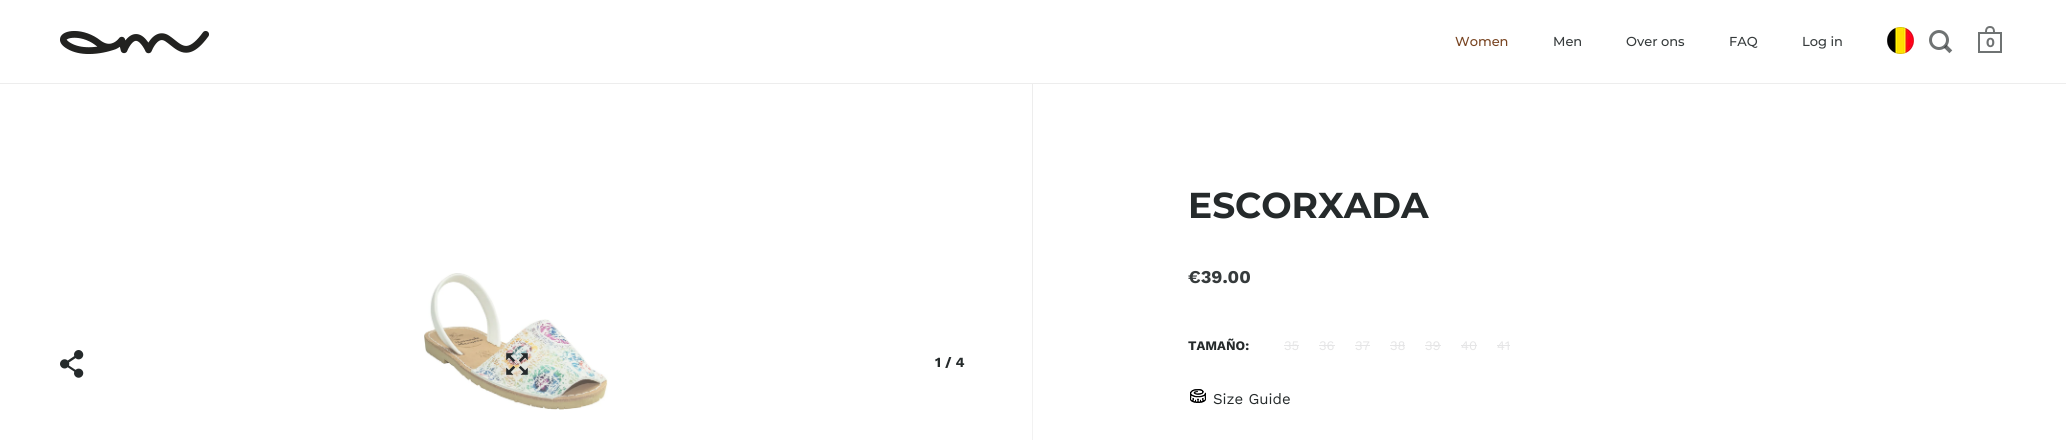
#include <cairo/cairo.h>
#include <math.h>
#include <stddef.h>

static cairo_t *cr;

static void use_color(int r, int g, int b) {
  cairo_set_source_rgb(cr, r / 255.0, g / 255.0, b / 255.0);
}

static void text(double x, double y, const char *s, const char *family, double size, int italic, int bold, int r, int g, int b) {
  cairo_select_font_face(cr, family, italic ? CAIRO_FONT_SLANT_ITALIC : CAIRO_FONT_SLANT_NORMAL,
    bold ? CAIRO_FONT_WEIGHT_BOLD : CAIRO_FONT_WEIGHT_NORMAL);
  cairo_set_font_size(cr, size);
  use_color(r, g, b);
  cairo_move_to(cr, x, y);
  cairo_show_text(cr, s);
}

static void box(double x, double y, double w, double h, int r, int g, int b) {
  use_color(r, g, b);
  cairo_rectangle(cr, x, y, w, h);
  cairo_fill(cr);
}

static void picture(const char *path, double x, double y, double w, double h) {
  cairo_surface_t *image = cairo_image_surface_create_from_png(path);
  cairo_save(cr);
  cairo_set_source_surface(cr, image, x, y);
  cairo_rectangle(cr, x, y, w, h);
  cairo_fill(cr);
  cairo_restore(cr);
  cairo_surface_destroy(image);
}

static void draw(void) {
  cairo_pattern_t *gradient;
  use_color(255, 255, 255);
  cairo_paint(cr);
  box(0, 83, 2066, 1, 237, 237, 237);
  picture("img_01.png", 60, 31, 149, 23);
  picture("img_02.png", 1887, 27, 27, 27);
  picture("img_03.png", 1929, 30, 24, 24);
  picture("img_04.png", 1978, 26, 24, 27);
  picture("img_05.png", 424, 273, 184, 137);
  picture("img_06.png", 60, 350, 24, 28);
  box(1032, 84, 1, 356, 237, 237, 237);
  gradient = cairo_pattern_create_linear(517, 270, 517, 440);
  cairo_pattern_add_color_stop_rgba(gradient, 0, 1, 1, 1, 0);
  cairo_pattern_add_color_stop_rgba(gradient, 1, 1, 1, 1, 0.3);
  cairo_set_source(cr, gradient);
  cairo_pattern_destroy(gradient);
  cairo_rectangle(cr, 424, 291, 609, 149);
  cairo_fill(cr);
  picture("img_07.png", 506, 353, 22, 22);
  box(1284, 345, 15, 1, 229, 229, 230);
  box(1319, 345, 16, 1, 229, 229, 230);
  box(1355, 345, 15, 1, 229, 229, 230);
  box(1390, 345, 15, 1, 229, 229, 230);
  box(1425, 345, 16, 1, 229, 229, 230);
  box(1461, 345, 16, 1, 229, 229, 230);
  box(1497, 345, 13, 1, 229, 229, 230);
  picture("img_08.png", 1190, 389, 16, 14);
  text(1455, 46, "Women", "Montserrat Medium", 13, 0, 0, 120, 68, 33);
  text(1553, 46, "Men", "Montserrat Medium", 13, 0, 0, 54, 59, 60);
  text(1626, 46, "Over ons", "Montserrat Medium", 13, 0, 0, 54, 59, 60);
  text(1729, 46, "FAQ", "Montserrat Medium", 13, 0, 0, 54, 59, 60);
  text(1802, 46, "Log in", "Montserrat Medium", 13, 0, 0, 54, 59, 60);
  text(1986, 47, "0", "Montserrat", 13, 0, 1, 111, 114, 115);
  text(935, 367, "1 / 4", "Work Sans", 14, 0, 1, 37, 42, 43);
  text(1188, 218, "ESCORXADA", "Montserrat", 36, 0, 1, 37, 42, 43);
  text(1188, 283, "€39.00", "Work Sans", 18, 0, 1, 54, 59, 60);
  text(1188, 350, "TAMAÑO:", "Work Sans", 13, 0, 1, 37, 42, 43);
  text(1284, 350, "35", "Work Sans", 13, 0, 0, 229, 229, 230);
  text(1319, 350, "36", "Work Sans", 13, 0, 0, 229, 229, 230);
  text(1355, 350, "37", "Work Sans", 13, 0, 0, 229, 229, 230);
  text(1390, 350, "38", "Work Sans", 13, 0, 0, 229, 229, 230);
  text(1425, 350, "39", "Work Sans", 13, 0, 0, 229, 229, 230);
  text(1461, 350, "40", "Work Sans", 13, 0, 0, 229, 229, 230);
  text(1497, 350, "41", "Work Sans", 13, 0, 0, 229, 229, 230);
  text(1213, 404, "Size Guide", "Work Sans", 15, 0, 0, 37, 42, 43);
}

int main(void) {
  cairo_surface_t *surface = cairo_image_surface_create(CAIRO_FORMAT_RGB24, 2066, 440);
  cr = cairo_create(surface);
  cairo_font_options_t *options = cairo_font_options_create();
  cairo_font_options_set_hint_metrics(options, CAIRO_HINT_METRICS_OFF);
  cairo_font_options_set_hint_style(options, CAIRO_HINT_STYLE_NONE);
  cairo_set_font_options(cr, options);
  cairo_set_miter_limit(cr, 4);
  draw();
  cairo_surface_write_to_png(surface, "out.png");
  cairo_font_options_destroy(options);
  cairo_destroy(cr);
  cairo_surface_destroy(surface);
  return 0;
}
